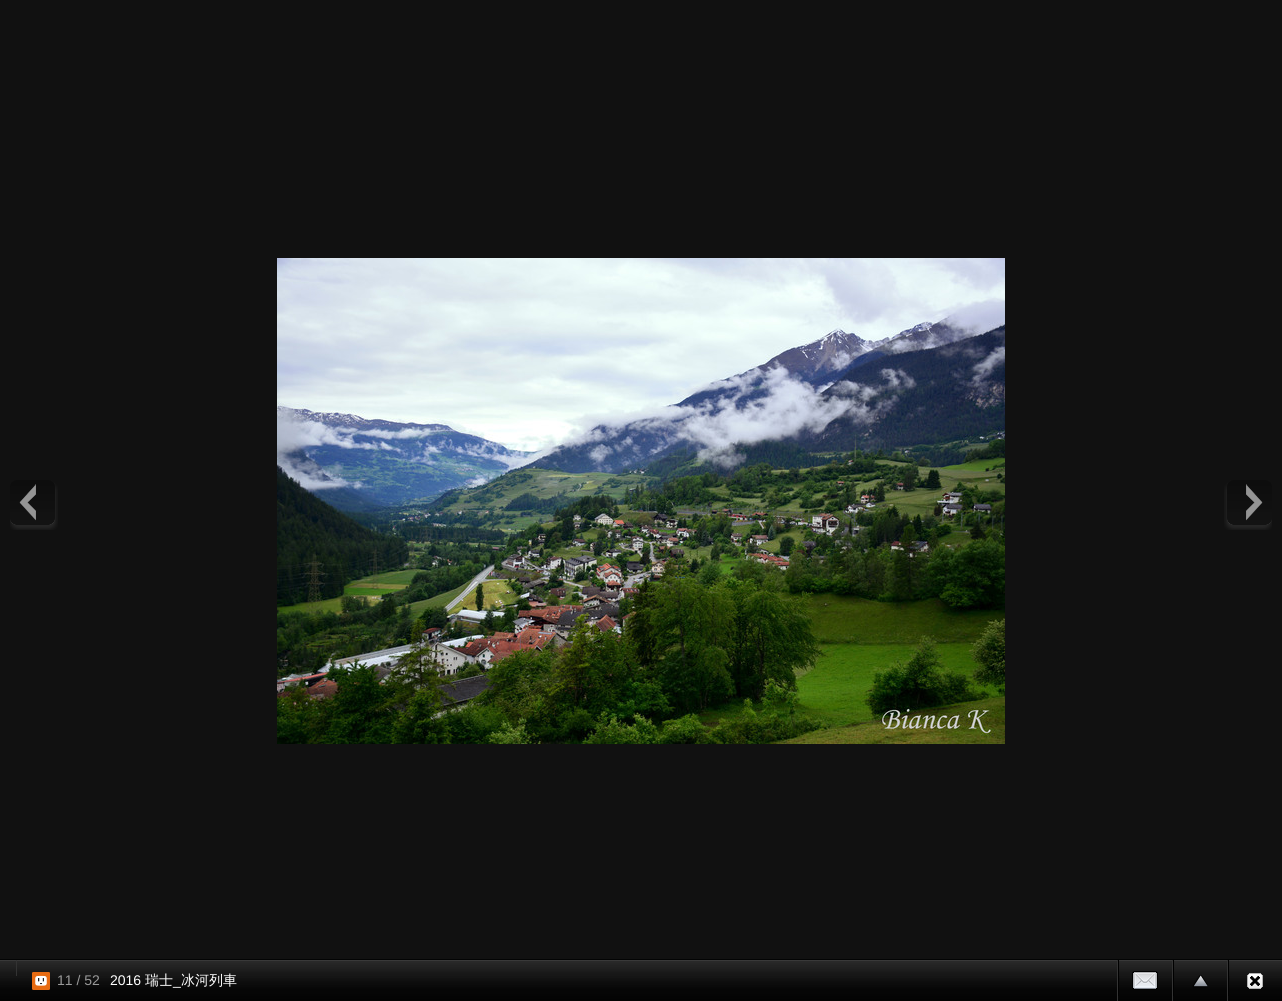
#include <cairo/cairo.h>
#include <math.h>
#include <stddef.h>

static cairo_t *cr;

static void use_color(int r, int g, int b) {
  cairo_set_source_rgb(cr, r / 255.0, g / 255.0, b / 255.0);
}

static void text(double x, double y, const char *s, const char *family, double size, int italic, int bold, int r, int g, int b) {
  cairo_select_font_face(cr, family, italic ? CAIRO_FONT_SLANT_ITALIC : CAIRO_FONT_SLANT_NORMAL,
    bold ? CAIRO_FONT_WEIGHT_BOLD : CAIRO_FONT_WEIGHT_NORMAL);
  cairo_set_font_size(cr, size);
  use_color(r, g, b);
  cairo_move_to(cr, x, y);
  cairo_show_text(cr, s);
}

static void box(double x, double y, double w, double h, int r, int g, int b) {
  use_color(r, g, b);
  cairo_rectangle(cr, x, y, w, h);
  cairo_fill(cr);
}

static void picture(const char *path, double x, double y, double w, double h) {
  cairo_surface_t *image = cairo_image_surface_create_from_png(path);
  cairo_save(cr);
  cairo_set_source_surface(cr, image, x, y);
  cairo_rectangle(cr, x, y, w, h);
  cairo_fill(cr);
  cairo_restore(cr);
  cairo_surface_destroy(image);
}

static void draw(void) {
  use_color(17, 17, 17);
  cairo_paint(cr);
  picture("img_01.png", 10, 480, 48, 50);
  picture("img_02.png", 277, 258, 728, 486);
  picture("img_03.png", 1224, 480, 48, 50);
  picture("img_04.png", 0, 959, 1282, 42);
  box(16, 960, 1, 16, 51, 51, 51);
  picture("img_05.png", 32, 972, 18, 18);
  box(1117, 960, 1, 41, 51, 51, 51);
  picture("img_06.png", 1118, 960, 40, 36);
  box(1172, 960, 1, 41, 51, 51, 51);
  picture("img_07.png", 1173, 960, 35, 36);
  box(1227, 960, 1, 41, 51, 51, 51);
  picture("img_08.png", 1228, 960, 35, 36);
  text(57, 985, "11 / 52", "Liberation Sans", 14, 0, 0, 153, 153, 153);
  text(110, 985, "2016", "Liberation Sans", 14, 0, 0, 255, 255, 255);
  text(145, 985, "瑞士", "WenQuanYi Zen Hei Medium", 14, 0, 0, 255, 255, 255);
  text(181, 985, "冰河列車", "WenQuanYi Zen Hei Medium", 14, 0, 0, 255, 255, 255);
  text(173, 985, "_", "Liberation Sans", 14, 0, 0, 255, 255, 255);
}

int main(void) {
  cairo_surface_t *surface = cairo_image_surface_create(CAIRO_FORMAT_RGB24, 1282, 1001);
  cr = cairo_create(surface);
  cairo_font_options_t *options = cairo_font_options_create();
  cairo_font_options_set_hint_metrics(options, CAIRO_HINT_METRICS_OFF);
  cairo_font_options_set_hint_style(options, CAIRO_HINT_STYLE_NONE);
  cairo_set_font_options(cr, options);
  cairo_set_miter_limit(cr, 4);
  draw();
  cairo_surface_write_to_png(surface, "out.png");
  cairo_font_options_destroy(options);
  cairo_destroy(cr);
  cairo_surface_destroy(surface);
  return 0;
}
